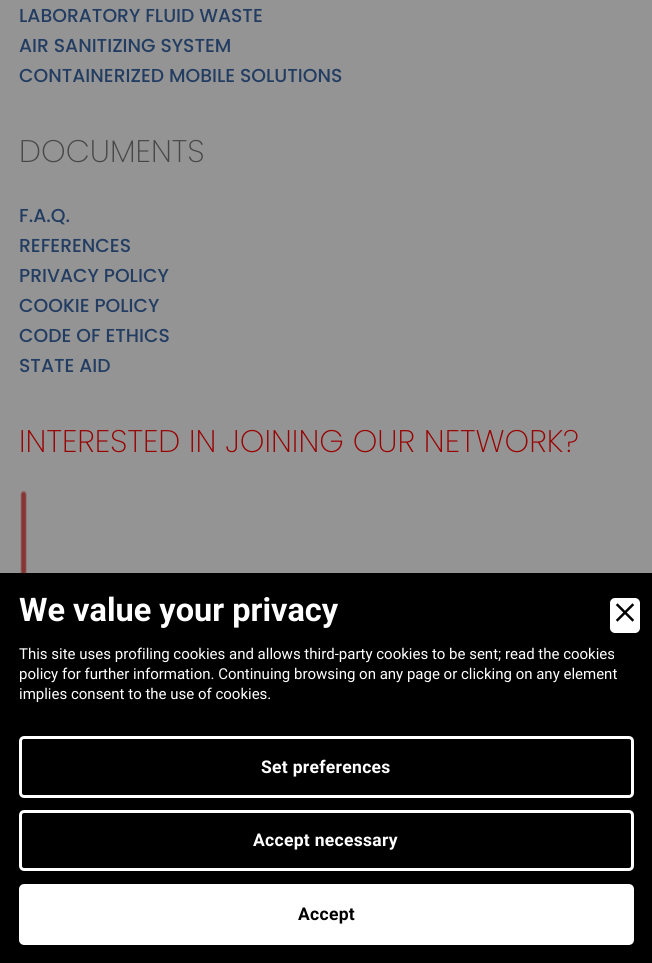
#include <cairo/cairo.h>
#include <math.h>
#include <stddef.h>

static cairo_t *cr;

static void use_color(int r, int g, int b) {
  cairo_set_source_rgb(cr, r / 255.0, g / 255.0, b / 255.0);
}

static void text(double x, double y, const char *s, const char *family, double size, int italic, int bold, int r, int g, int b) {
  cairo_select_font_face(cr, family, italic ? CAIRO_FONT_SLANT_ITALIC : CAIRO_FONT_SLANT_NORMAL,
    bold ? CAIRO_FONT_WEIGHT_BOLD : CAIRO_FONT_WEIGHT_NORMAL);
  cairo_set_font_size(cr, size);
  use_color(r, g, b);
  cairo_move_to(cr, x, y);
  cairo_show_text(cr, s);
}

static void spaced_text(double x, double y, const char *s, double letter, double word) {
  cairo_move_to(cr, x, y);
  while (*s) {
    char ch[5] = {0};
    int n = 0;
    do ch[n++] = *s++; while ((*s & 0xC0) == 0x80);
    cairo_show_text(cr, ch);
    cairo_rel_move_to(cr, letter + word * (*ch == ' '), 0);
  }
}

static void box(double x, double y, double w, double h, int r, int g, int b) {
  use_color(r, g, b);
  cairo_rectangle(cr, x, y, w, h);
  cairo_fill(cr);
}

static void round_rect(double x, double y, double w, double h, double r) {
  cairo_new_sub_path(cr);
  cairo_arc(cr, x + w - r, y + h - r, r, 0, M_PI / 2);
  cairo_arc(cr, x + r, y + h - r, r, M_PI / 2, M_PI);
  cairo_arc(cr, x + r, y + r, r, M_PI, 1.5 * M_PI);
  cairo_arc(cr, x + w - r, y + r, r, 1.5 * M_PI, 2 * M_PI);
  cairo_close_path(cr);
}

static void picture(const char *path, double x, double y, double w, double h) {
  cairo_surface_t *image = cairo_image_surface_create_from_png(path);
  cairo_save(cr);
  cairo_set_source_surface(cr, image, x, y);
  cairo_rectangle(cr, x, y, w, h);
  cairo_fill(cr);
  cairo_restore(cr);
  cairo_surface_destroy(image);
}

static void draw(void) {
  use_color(148, 148, 148);
  cairo_paint(cr);
  picture("img_01.png", 20, 490, 7, 83);
  box(0, 573, 652, 390, 0, 0, 0);
  use_color(255, 255, 255);
  round_rect(610, 598, 30, 35, 5);
  cairo_fill(cr);
  picture("img_02.png", 615, 603, 20, 19);
  round_rect(20.5, 737.5, 612, 59, 3.5);
  cairo_set_line_width(cr, 3);
  cairo_stroke(cr);
  round_rect(20.5, 811.5, 612, 58, 3.5);
  cairo_stroke(cr);
  round_rect(20.5, 885.5, 612, 58, 3.5);
  cairo_fill_preserve(cr);
  cairo_stroke(cr);
  text(19, 22, "LABORATORY FLUID WASTE", "Poppins Medium", 18.75, 0, 0, 35, 61, 98);
  text(19, 52, "AIR SANITIZING SYSTEM", "Poppins Medium", 18.75, 0, 0, 35, 61, 98);
  text(19, 82, "CONTAINERIZED MOBILE SOLUTIONS", "Poppins Medium", 18.75, 0, 0, 35, 61, 98);
  text(19, 162, "DOCUMENTS", "Poppins ExtraLight", 31.25, 0, 0, 71, 71, 71);
  text(19, 222, "F.A.Q.", "Poppins Medium", 18.75, 0, 0, 35, 61, 98);
  text(19, 252, "REFERENCES", "Poppins Medium", 18.75, 0, 0, 35, 61, 98);
  text(19, 282, "PRIVACY POLICY", "Poppins Medium", 18.75, 0, 0, 35, 61, 98);
  text(19, 312, "COOKIE POLICY", "Poppins Medium", 18.75, 0, 0, 35, 61, 98);
  text(19, 342, "CODE OF ETHICS", "Poppins Medium", 18.75, 0, 0, 35, 61, 98);
  text(19, 372, "STATE AID", "Poppins Medium", 18.75, 0, 0, 35, 61, 98);
  text(19, 452, "INTERESTED IN JOINING OUR NETWORK?", "Poppins ExtraLight", 31.25, 0, 0, 153, 0, 0);
  text(19, 621, "We value your privacy", "Roboto", 32.5, 0, 1, 255, 255, 255);
  text(19, 659, "This site uses profiling cookies and allows third-party cookies to be sent; read the cookies", "Roboto", 15, 0, 0, 255, 255, 255);
  text(19, 679, "policy for further information. Continuing browsing on any page or clicking on any element", "Roboto", 15, 0, 0, 255, 255, 255);
  text(19, 699, "implies consent to the use of cookies.", "Roboto", 15, 0, 0, 255, 255, 255);
  cairo_select_font_face(cr, "Roboto", CAIRO_FONT_SLANT_NORMAL, CAIRO_FONT_WEIGHT_BOLD);
  cairo_set_font_size(cr, 17.5);
  spaced_text(261, 773, "Set preferences", 0.3, 0);
  spaced_text(253, 846, "Accept necessary", 0.3, 0);
  use_color(0, 0, 0);
  spaced_text(298, 920, "Accept", 0.3, 0);
}

int main(void) {
  cairo_surface_t *surface = cairo_image_surface_create(CAIRO_FORMAT_RGB24, 652, 963);
  cr = cairo_create(surface);
  cairo_font_options_t *options = cairo_font_options_create();
  cairo_font_options_set_hint_metrics(options, CAIRO_HINT_METRICS_OFF);
  cairo_font_options_set_hint_style(options, CAIRO_HINT_STYLE_NONE);
  cairo_set_font_options(cr, options);
  cairo_set_miter_limit(cr, 4);
  draw();
  cairo_surface_write_to_png(surface, "out.png");
  cairo_font_options_destroy(options);
  cairo_destroy(cr);
  cairo_surface_destroy(surface);
  return 0;
}
